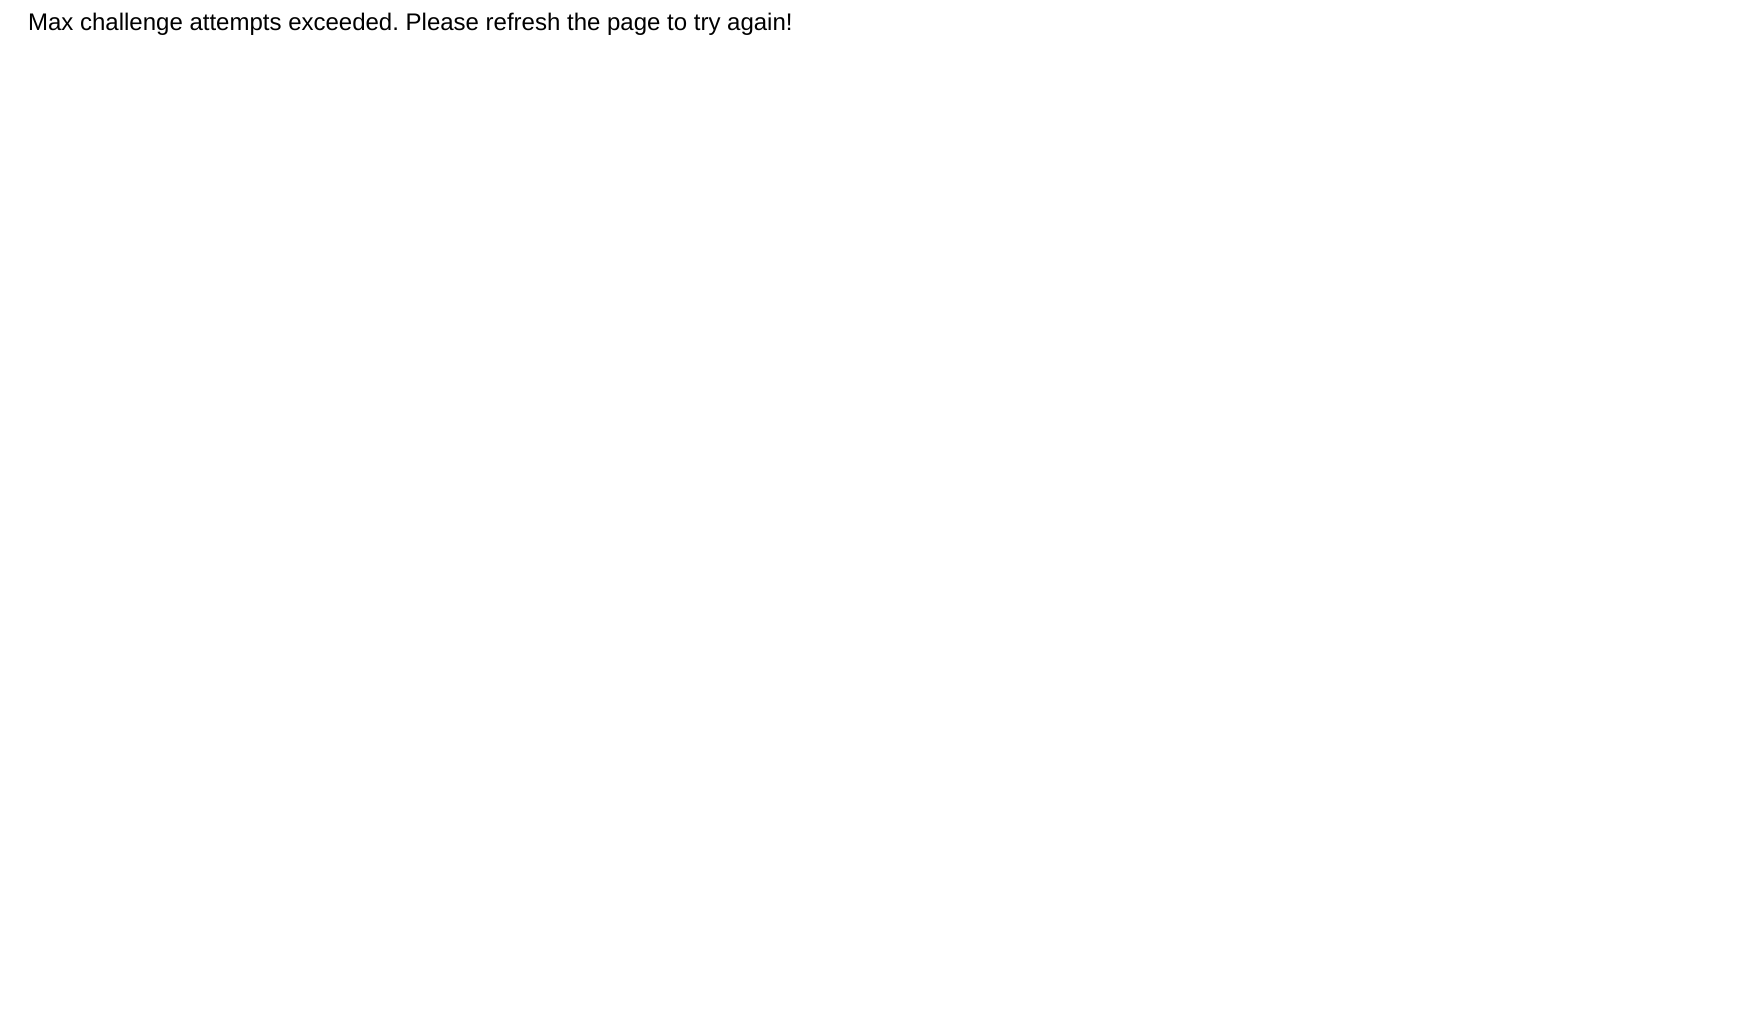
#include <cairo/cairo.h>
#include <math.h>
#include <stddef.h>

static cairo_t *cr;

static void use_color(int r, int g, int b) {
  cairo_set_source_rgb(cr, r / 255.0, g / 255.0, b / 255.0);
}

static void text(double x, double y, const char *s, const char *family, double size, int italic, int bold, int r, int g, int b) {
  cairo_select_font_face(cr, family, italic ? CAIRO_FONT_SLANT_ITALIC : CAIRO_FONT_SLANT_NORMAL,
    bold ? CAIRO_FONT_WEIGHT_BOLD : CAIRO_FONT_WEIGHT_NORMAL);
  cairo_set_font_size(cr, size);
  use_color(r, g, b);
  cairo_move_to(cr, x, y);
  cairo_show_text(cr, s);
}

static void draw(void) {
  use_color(255, 255, 255);
  cairo_paint(cr);
  text(28, 30, "Max challenge attempts exceeded. Please refresh the page to try again!", "Liberation Sans", 24, 0, 0, 0, 0, 0);
}

int main(void) {
  cairo_surface_t *surface = cairo_image_surface_create(CAIRO_FORMAT_RGB24, 1746, 1033);
  cr = cairo_create(surface);
  cairo_font_options_t *options = cairo_font_options_create();
  cairo_font_options_set_hint_metrics(options, CAIRO_HINT_METRICS_OFF);
  cairo_font_options_set_hint_style(options, CAIRO_HINT_STYLE_NONE);
  cairo_set_font_options(cr, options);
  cairo_set_miter_limit(cr, 4);
  draw();
  cairo_surface_write_to_png(surface, "out.png");
  cairo_font_options_destroy(options);
  cairo_destroy(cr);
  cairo_surface_destroy(surface);
  return 0;
}
